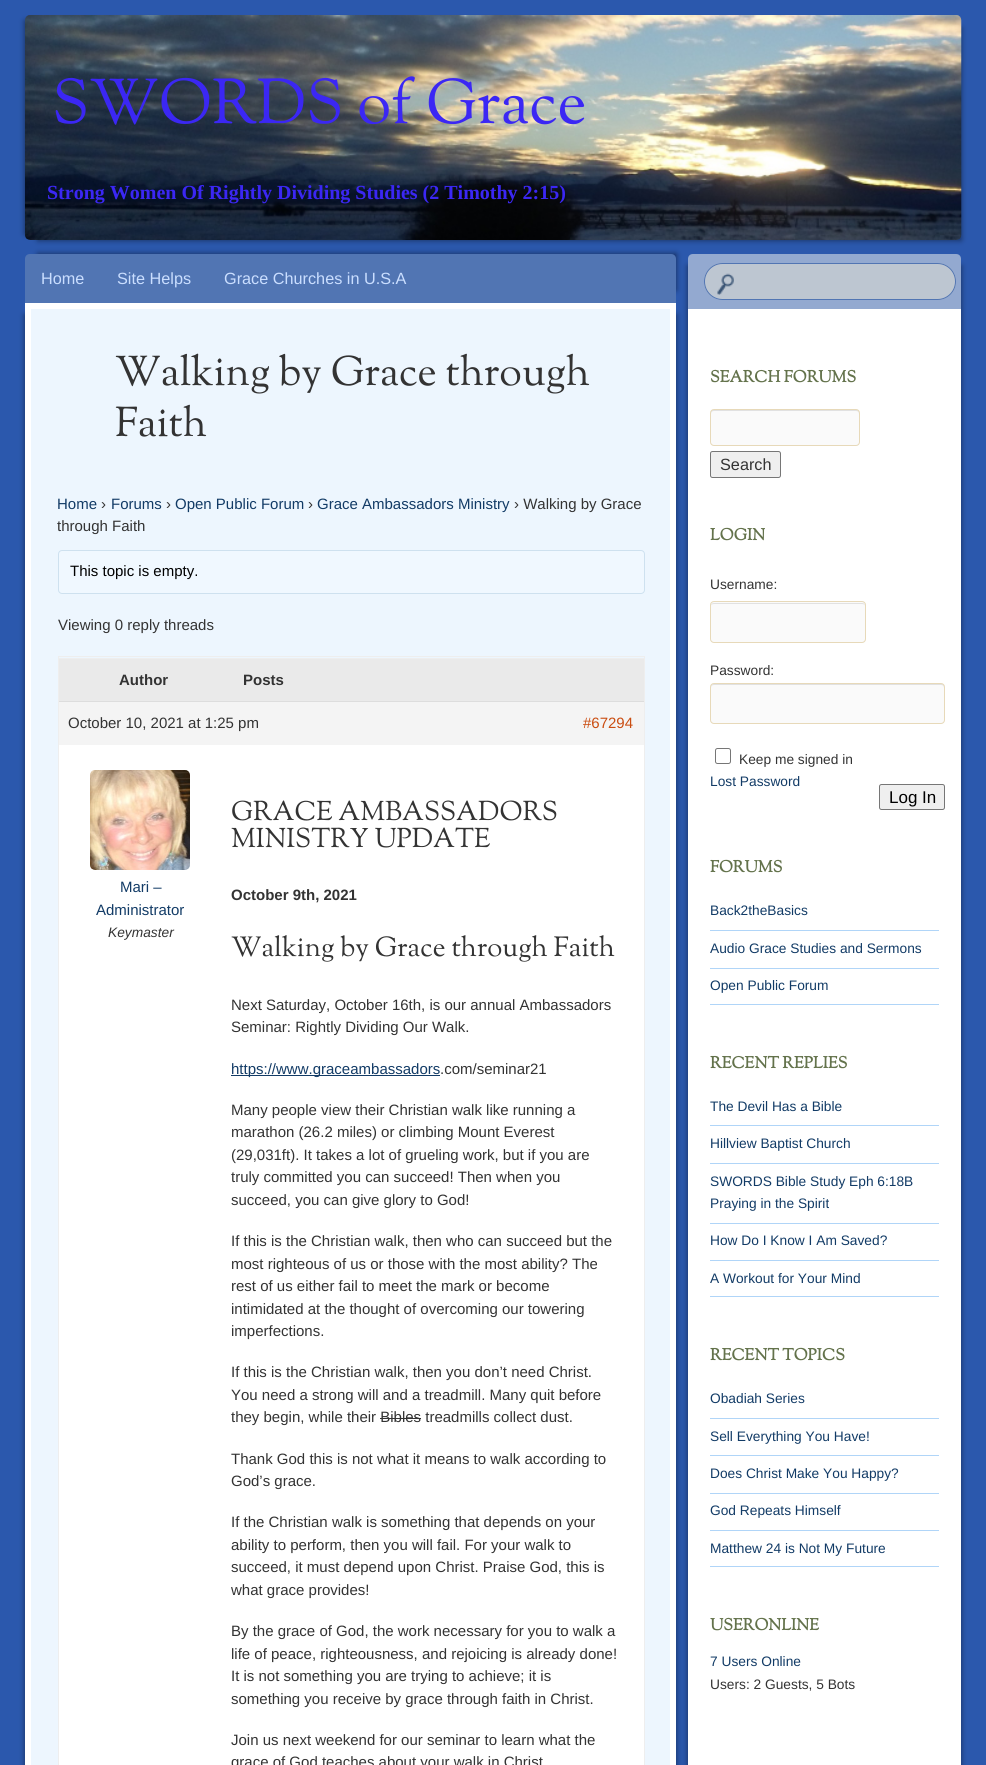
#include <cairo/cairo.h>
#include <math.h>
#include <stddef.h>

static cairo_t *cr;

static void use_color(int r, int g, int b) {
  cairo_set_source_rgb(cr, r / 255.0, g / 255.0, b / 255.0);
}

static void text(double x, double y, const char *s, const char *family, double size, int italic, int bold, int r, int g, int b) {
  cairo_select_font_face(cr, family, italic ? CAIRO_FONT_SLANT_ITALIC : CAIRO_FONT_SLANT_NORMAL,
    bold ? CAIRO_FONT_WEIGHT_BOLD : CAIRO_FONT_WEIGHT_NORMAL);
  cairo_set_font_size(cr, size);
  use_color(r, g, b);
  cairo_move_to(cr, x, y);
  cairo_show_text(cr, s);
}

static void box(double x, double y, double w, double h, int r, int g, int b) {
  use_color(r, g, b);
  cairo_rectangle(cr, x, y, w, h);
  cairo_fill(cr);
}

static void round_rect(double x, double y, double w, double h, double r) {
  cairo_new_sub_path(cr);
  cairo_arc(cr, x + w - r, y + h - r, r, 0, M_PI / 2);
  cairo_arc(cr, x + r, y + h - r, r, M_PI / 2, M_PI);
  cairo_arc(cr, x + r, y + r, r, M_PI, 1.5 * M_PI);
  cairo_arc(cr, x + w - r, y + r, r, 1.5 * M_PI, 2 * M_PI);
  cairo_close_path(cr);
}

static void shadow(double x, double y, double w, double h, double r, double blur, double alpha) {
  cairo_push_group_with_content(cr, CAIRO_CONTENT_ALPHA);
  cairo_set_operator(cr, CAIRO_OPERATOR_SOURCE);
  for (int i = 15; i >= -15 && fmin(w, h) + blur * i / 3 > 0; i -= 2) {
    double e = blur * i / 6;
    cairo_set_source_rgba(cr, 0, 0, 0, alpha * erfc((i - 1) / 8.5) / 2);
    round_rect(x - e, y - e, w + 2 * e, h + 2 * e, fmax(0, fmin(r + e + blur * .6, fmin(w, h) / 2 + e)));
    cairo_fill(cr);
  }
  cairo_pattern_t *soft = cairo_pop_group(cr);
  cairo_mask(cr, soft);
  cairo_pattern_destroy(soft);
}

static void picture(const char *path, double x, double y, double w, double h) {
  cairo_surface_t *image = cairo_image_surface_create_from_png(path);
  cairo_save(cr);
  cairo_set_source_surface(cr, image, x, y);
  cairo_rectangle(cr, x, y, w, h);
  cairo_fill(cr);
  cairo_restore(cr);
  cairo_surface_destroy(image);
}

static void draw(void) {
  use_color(43, 88, 173);
  cairo_paint(cr);
  use_color(0, 0, 0);
  shadow(25, 21, 924, 213, 0, 3, 0.5);
  shadow(38, 28, 923, 212, 0, 3, 0.5);
  picture("img_01.png", 25, 15, 937, 225);
  shadow(38, 254, 638, 36, 0, 3, 0.5);
  use_color(81, 117, 179);
  cairo_new_path(cr);
  cairo_move_to(cr, 30, 254);
  cairo_line_to(cr, 671, 254);
  cairo_curve_to(cr, 674, 254, 676, 256, 676, 259);
  cairo_line_to(cr, 676, 303);
  cairo_line_to(cr, 25, 303);
  cairo_line_to(cr, 25, 259);
  cairo_curve_to(cr, 25, 256, 27, 254, 30, 254);
  cairo_close_path(cr);
  cairo_fill(cr);
  use_color(0, 0, 0);
  shadow(25, 315, 639, 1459, 0, 3, 0.5);
  shadow(38, 315, 638, 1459, 0, 3, 0.5);
  use_color(237, 246, 254);
  cairo_rectangle(cr, 28, 306, 645, 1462);
  cairo_fill_preserve(cr);
  use_color(255, 255, 255);
  cairo_set_line_width(cr, 6);
  cairo_stroke(cr);
  use_color(240, 248, 255);
  round_rect(58.5, 550.5, 586, 43, 3.5);
  cairo_fill_preserve(cr);
  use_color(206, 225, 239);
  cairo_set_line_width(cr, 1);
  cairo_stroke(cr);
  cairo_rectangle(cr, 58.5, 656.5, 586, 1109);
  use_color(238, 238, 238);
  cairo_stroke(cr);
  box(59, 659, 585, 42, 234, 234, 234);
  box(59, 658, 585, 1, 238, 238, 238);
  box(59, 702, 585, 43, 244, 244, 244);
  box(59, 701, 585, 1, 221, 221, 221);
  box(59, 745, 585, 1020, 255, 255, 255);
  picture("img_02.png", 90, 770, 100, 100);
  box(231, 1075, 209, 1, 18, 59, 102);
  box(380, 1418, 41, 1, 51, 51, 51);
  use_color(0, 0, 0);
  shadow(688, 266, 261, 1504, 0, 3, 0.5);
  shadow(700, 266, 261, 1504, 0, 3, 0.5);
  use_color(147, 169, 208);
  cairo_new_path(cr);
  cairo_move_to(cr, 693, 254);
  cairo_line_to(cr, 956, 254);
  cairo_curve_to(cr, 959, 254, 961, 256, 961, 259);
  cairo_line_to(cr, 961, 309);
  cairo_line_to(cr, 688, 309);
  cairo_line_to(cr, 688, 259);
  cairo_curve_to(cr, 688, 256, 690, 254, 693, 254);
  cairo_close_path(cr);
  cairo_fill(cr);
  use_color(189, 198, 209);
  round_rect(704, 263, 252, 37, 18.5);
  cairo_fill(cr);
  picture("img_03.png", 717, 273, 17, 22);
  round_rect(704.5, 263.5, 251, 36, 18);
  use_color(81, 117, 179);
  cairo_stroke(cr);
  box(688, 309, 273, 1456, 255, 255, 255);
  use_color(250, 250, 250);
  round_rect(710, 409, 150, 37, 4);
  cairo_fill(cr);
  use_color(225, 225, 225);
  cairo_new_path(cr);
  cairo_move_to(cr, 714, 411);
  cairo_line_to(cr, 856, 411);
  cairo_curve_to(cr, 858, 411, 859, 412, 859, 414);
  cairo_curve_to(cr, 859, 412, 859, 410, 857, 410);
  cairo_line_to(cr, 713, 410);
  cairo_curve_to(cr, 711, 410, 711, 412, 711, 414);
  cairo_curve_to(cr, 711, 412, 712, 411, 714, 411);
  cairo_close_path(cr);
  cairo_fill(cr);
  round_rect(710.5, 409.5, 149, 36, 3.5);
  use_color(231, 217, 185);
  cairo_stroke(cr);
  use_color(239, 239, 239);
  round_rect(710.5, 451.5, 70, 26, 2);
  cairo_fill_preserve(cr);
  use_color(118, 118, 118);
  cairo_stroke(cr);
  use_color(250, 250, 250);
  round_rect(710, 601, 156, 42, 4);
  cairo_fill(cr);
  use_color(225, 225, 225);
  cairo_new_path(cr);
  cairo_move_to(cr, 714, 604);
  cairo_line_to(cr, 862, 604);
  cairo_curve_to(cr, 864, 604, 865, 605, 865, 606);
  cairo_curve_to(cr, 865, 604, 864, 603, 862, 603);
  cairo_line_to(cr, 714, 603);
  cairo_curve_to(cr, 712, 603, 711, 604, 711, 606);
  cairo_curve_to(cr, 711, 605, 712, 604, 714, 604);
  cairo_close_path(cr);
  cairo_fill(cr);
  round_rect(710.5, 601.5, 155, 41, 3.5);
  use_color(231, 217, 185);
  cairo_stroke(cr);
  use_color(250, 250, 250);
  round_rect(710, 683, 235, 41, 4);
  cairo_fill(cr);
  use_color(225, 225, 225);
  cairo_new_path(cr);
  cairo_move_to(cr, 714, 685);
  cairo_line_to(cr, 941, 685);
  cairo_curve_to(cr, 943, 685, 944, 686, 944, 688);
  cairo_curve_to(cr, 944, 686, 944, 684, 942, 684);
  cairo_line_to(cr, 714, 684);
  cairo_curve_to(cr, 711, 684, 711, 686, 711, 688);
  cairo_curve_to(cr, 711, 686, 712, 685, 714, 685);
  cairo_close_path(cr);
  cairo_fill(cr);
  round_rect(710.5, 683.5, 234, 40, 3.5);
  use_color(231, 217, 185);
  cairo_stroke(cr);
  round_rect(715.5, 748.5, 15, 15, 2);
  use_color(118, 118, 118);
  cairo_stroke(cr);
  use_color(239, 239, 239);
  round_rect(879.5, 784.5, 65, 25, 2);
  cairo_fill_preserve(cr);
  use_color(118, 118, 118);
  cairo_stroke(cr);
  box(710, 930, 229, 1, 176, 213, 248);
  box(710, 968, 229, 1, 176, 213, 248);
  box(710, 1004, 229, 1, 176, 213, 248);
  box(710, 1125, 229, 1, 176, 213, 248);
  box(710, 1163, 229, 1, 176, 213, 248);
  box(710, 1223, 229, 1, 176, 213, 248);
  box(710, 1260, 229, 1, 176, 213, 248);
  box(710, 1296, 229, 1, 176, 213, 248);
  box(710, 1418, 229, 1, 176, 213, 248);
  box(710, 1455, 229, 1, 176, 213, 248);
  box(710, 1493, 229, 1, 176, 213, 248);
  box(710, 1530, 229, 1, 176, 213, 248);
  box(710, 1566, 229, 1, 176, 213, 248);
  text(52, 123, "SWORDS of Grace", "Sorts Mill Goudy", 62.5, 0, 0, 59, 39, 244);
  text(47, 199, "Strong Women Of Rightly Dividing Studies (2 Timothy 2:15)", "Liberation Serif", 20, 0, 1, 59, 39, 244);
  text(41, 284, "Home", "Liberation Sans", 16.25, 0, 0, 202, 222, 255);
  text(117, 284, "Site Helps", "Liberation Sans", 16.25, 0, 0, 202, 222, 255);
  text(224, 284, "Grace Churches in U.S.A", "Liberation Sans", 16.25, 0, 0, 202, 222, 255);
  text(115, 385, "Walking by Grace through", "Sorts Mill Goudy", 41.25, 0, 0, 51, 51, 51);
  text(115, 436, "Faith", "Sorts Mill Goudy", 41.25, 0, 0, 51, 51, 51);
  text(57, 509, "Home", "Liberation Sans", 15, 0, 0, 18, 59, 102);
  text(101, 509, "›", "Liberation Sans", 15, 0, 0, 51, 51, 51);
  text(111, 509, "Forums", "Liberation Sans", 15, 0, 0, 18, 59, 102);
  text(166, 509, "›", "Liberation Sans", 15, 0, 0, 51, 51, 51);
  text(175, 509, "Open Public Forum", "Liberation Sans", 15, 0, 0, 18, 59, 102);
  text(308, 509, "›", "Liberation Sans", 15, 0, 0, 51, 51, 51);
  text(317, 509, "Grace Ambassadors Ministry", "Liberation Sans", 15, 0, 0, 18, 59, 102);
  text(514, 509, "› Walking by Grace", "Liberation Sans", 15, 0, 0, 51, 51, 51);
  text(57, 531, "through Faith", "Liberation Sans", 15, 0, 0, 51, 51, 51);
  text(70, 576, "This topic is empty.", "Liberation Sans", 15, 0, 0, 0, 0, 0);
  text(58, 630, "Viewing 0 reply threads", "Liberation Sans", 15, 0, 0, 51, 51, 51);
  text(119, 685, "Author", "Liberation Sans", 15, 0, 1, 51, 51, 51);
  text(243, 685, "Posts", "Liberation Sans", 15, 0, 1, 51, 51, 51);
  text(68, 728, "October 10, 2021 at 1:25 pm", "Liberation Sans", 15, 0, 0, 51, 51, 51);
  text(583, 728, "#67294", "Liberation Sans", 15, 0, 0, 202, 77, 17);
  text(120, 892, "Mari –", "Liberation Sans", 15, 0, 0, 18, 59, 102);
  text(96, 915, "Administrator", "Liberation Sans", 15, 0, 0, 18, 59, 102);
  text(108, 937, "Keymaster", "Liberation Sans", 13.75, 1, 0, 51, 51, 51);
  text(231, 820, "GRACE AMBASSADORS", "Sorts Mill Goudy", 27, 0, 0, 51, 51, 51);
  text(231, 847, "MINISTRY UPDATE", "Sorts Mill Goudy", 27, 0, 0, 51, 51, 51);
  text(231, 900, "October 9th, 2021", "Liberation Sans", 15, 0, 1, 51, 51, 51);
  text(231, 956, "Walking by Grace through Faith", "Sorts Mill Goudy", 27.5, 0, 0, 51, 51, 51);
  text(231, 1010, "Next Saturday, October 16th, is our annual Ambassadors", "Liberation Sans", 15, 0, 0, 51, 51, 51);
  text(231, 1032, "Seminar: Rightly Dividing Our Walk.", "Liberation Sans", 15, 0, 0, 51, 51, 51);
  text(231, 1074, "https://www.graceambassadors", "Liberation Sans", 15, 0, 0, 18, 59, 102);
  text(440, 1074, ".com/seminar21", "Liberation Sans", 15, 0, 0, 51, 51, 51);
  text(231, 1115, "Many people view their Christian walk like running a", "Liberation Sans", 15, 0, 0, 51, 51, 51);
  text(231, 1137, "marathon (26.2 miles) or climbing Mount Everest", "Liberation Sans", 15, 0, 0, 51, 51, 51);
  text(231, 1160, "(29,031ft). It takes a lot of grueling work, but if you are", "Liberation Sans", 15, 0, 0, 51, 51, 51);
  text(231, 1182, "truly committed you can succeed! Then when you", "Liberation Sans", 15, 0, 0, 51, 51, 51);
  text(231, 1205, "succeed, you can give glory to God!", "Liberation Sans", 15, 0, 0, 51, 51, 51);
  text(231, 1246, "If this is the Christian walk, then who can succeed but the", "Liberation Sans", 15, 0, 0, 51, 51, 51);
  text(231, 1269, "most righteous of us or those with the most ability? The", "Liberation Sans", 15, 0, 0, 51, 51, 51);
  text(231, 1291, "rest of us either fail to meet the mark or become", "Liberation Sans", 15, 0, 0, 51, 51, 51);
  text(231, 1314, "intimidated at the thought of overcoming our towering", "Liberation Sans", 15, 0, 0, 51, 51, 51);
  text(231, 1336, "imperfections.", "Liberation Sans", 15, 0, 0, 51, 51, 51);
  text(231, 1377, "If this is the Christian walk, then you don’t need Christ.", "Liberation Sans", 15, 0, 0, 51, 51, 51);
  text(231, 1400, "You need a strong will and a treadmill. Many quit before", "Liberation Sans", 15, 0, 0, 51, 51, 51);
  text(231, 1422, "they begin, while their Bibles treadmills collect dust.", "Liberation Sans", 15, 0, 0, 51, 51, 51);
  text(231, 1464, "Thank God this is not what it means to walk according to", "Liberation Sans", 15, 0, 0, 51, 51, 51);
  text(231, 1486, "God’s grace.", "Liberation Sans", 15, 0, 0, 51, 51, 51);
  text(231, 1527, "If the Christian walk is something that depends on your", "Liberation Sans", 15, 0, 0, 51, 51, 51);
  text(231, 1550, "ability to perform, then you will fail. For your walk to", "Liberation Sans", 15, 0, 0, 51, 51, 51);
  text(231, 1572, "succeed, it must depend upon Christ. Praise God, this is", "Liberation Sans", 15, 0, 0, 51, 51, 51);
  text(231, 1595, "what grace provides!", "Liberation Sans", 15, 0, 0, 51, 51, 51);
  text(231, 1636, "By the grace of God, the work necessary for you to walk a", "Liberation Sans", 15, 0, 0, 51, 51, 51);
  text(231, 1659, "life of peace, righteousness, and rejoicing is already done!", "Liberation Sans", 15, 0, 0, 51, 51, 51);
  text(231, 1681, "It is not something you are trying to achieve; it is", "Liberation Sans", 15, 0, 0, 51, 51, 51);
  text(231, 1704, "something you receive by grace through faith in Christ.", "Liberation Sans", 15, 0, 0, 51, 51, 51);
  text(231, 1745, "Join us next weekend for our seminar to learn what the", "Liberation Sans", 15, 0, 0, 51, 51, 51);
  text(231, 1767, "grace of God teaches about your walk in Christ", "Liberation Sans", 15, 0, 0, 51, 51, 51);
  text(710, 382, "SEARCH FORUMS", "Sorts Mill Goudy", 16.25, 0, 1, 99, 114, 75);
  text(720, 470, "Search", "Liberation Sans", 16.25, 0, 0, 51, 51, 51);
  text(710, 540, "LOGIN", "Sorts Mill Goudy", 16.25, 0, 1, 99, 114, 75);
  text(710, 589, "Username:", "Liberation Sans", 13.75, 0, 0, 51, 51, 51);
  text(710, 675, "Password:", "Liberation Sans", 13.75, 0, 0, 51, 51, 51);
  text(739, 764, "Keep me signed in", "Liberation Sans", 13.75, 0, 0, 51, 51, 51);
  text(710, 786, "Lost Password", "Liberation Sans", 13.75, 0, 0, 18, 59, 102);
  text(889, 803, "Log In", "Liberation Sans", 17, 0, 0, 0, 0, 0);
  text(710, 872, "FORUMS", "Sorts Mill Goudy", 16.25, 0, 1, 99, 114, 75);
  text(710, 915, "Back2theBasics", "Liberation Sans", 13.75, 0, 0, 18, 59, 102);
  text(710, 953, "Audio Grace Studies and Sermons", "Liberation Sans", 13.75, 0, 0, 18, 59, 102);
  text(710, 990, "Open Public Forum", "Liberation Sans", 13.75, 0, 0, 18, 59, 102);
  text(710, 1068, "RECENT REPLIES", "Sorts Mill Goudy", 16.25, 0, 1, 99, 114, 75);
  text(710, 1111, "The Devil Has a Bible", "Liberation Sans", 13.75, 0, 0, 18, 59, 102);
  text(710, 1148, "Hillview Baptist Church", "Liberation Sans", 13.75, 0, 0, 18, 59, 102);
  text(710, 1186, "SWORDS Bible Study Eph 6:18B", "Liberation Sans", 13.75, 0, 0, 18, 59, 102);
  text(710, 1208, "Praying in the Spirit", "Liberation Sans", 13.75, 0, 0, 18, 59, 102);
  text(710, 1245, "How Do I Know I Am Saved?", "Liberation Sans", 13.75, 0, 0, 18, 59, 102);
  text(710, 1283, "A Workout for Your Mind", "Liberation Sans", 13.75, 0, 0, 18, 59, 102);
  text(710, 1360, "RECENT TOPICS", "Sorts Mill Goudy", 16.25, 0, 1, 99, 114, 75);
  text(710, 1403, "Obadiah Series", "Liberation Sans", 13.75, 0, 0, 18, 59, 102);
  text(710, 1441, "Sell Everything You Have!", "Liberation Sans", 13.75, 0, 0, 18, 59, 102);
  text(710, 1478, "Does Christ Make You Happy?", "Liberation Sans", 13.75, 0, 0, 18, 59, 102);
  text(710, 1515, "God Repeats Himself", "Liberation Sans", 13.75, 0, 0, 18, 59, 102);
  text(710, 1553, "Matthew 24 is Not My Future", "Liberation Sans", 13.75, 0, 0, 18, 59, 102);
  text(710, 1630, "USERONLINE", "Sorts Mill Goudy", 16.25, 0, 1, 99, 114, 75);
  text(710, 1666, "7 Users Online", "Liberation Sans", 13.75, 0, 0, 18, 59, 102);
  text(710, 1689, "Users: 2 Guests, 5 Bots", "Liberation Sans", 13.75, 0, 0, 51, 51, 51);
}

int main(void) {
  cairo_surface_t *surface = cairo_image_surface_create(CAIRO_FORMAT_RGB24, 986, 1765);
  cr = cairo_create(surface);
  cairo_font_options_t *options = cairo_font_options_create();
  cairo_font_options_set_hint_metrics(options, CAIRO_HINT_METRICS_OFF);
  cairo_font_options_set_hint_style(options, CAIRO_HINT_STYLE_NONE);
  cairo_set_font_options(cr, options);
  cairo_set_miter_limit(cr, 4);
  draw();
  cairo_surface_write_to_png(surface, "out.png");
  cairo_font_options_destroy(options);
  cairo_destroy(cr);
  cairo_surface_destroy(surface);
  return 0;
}
